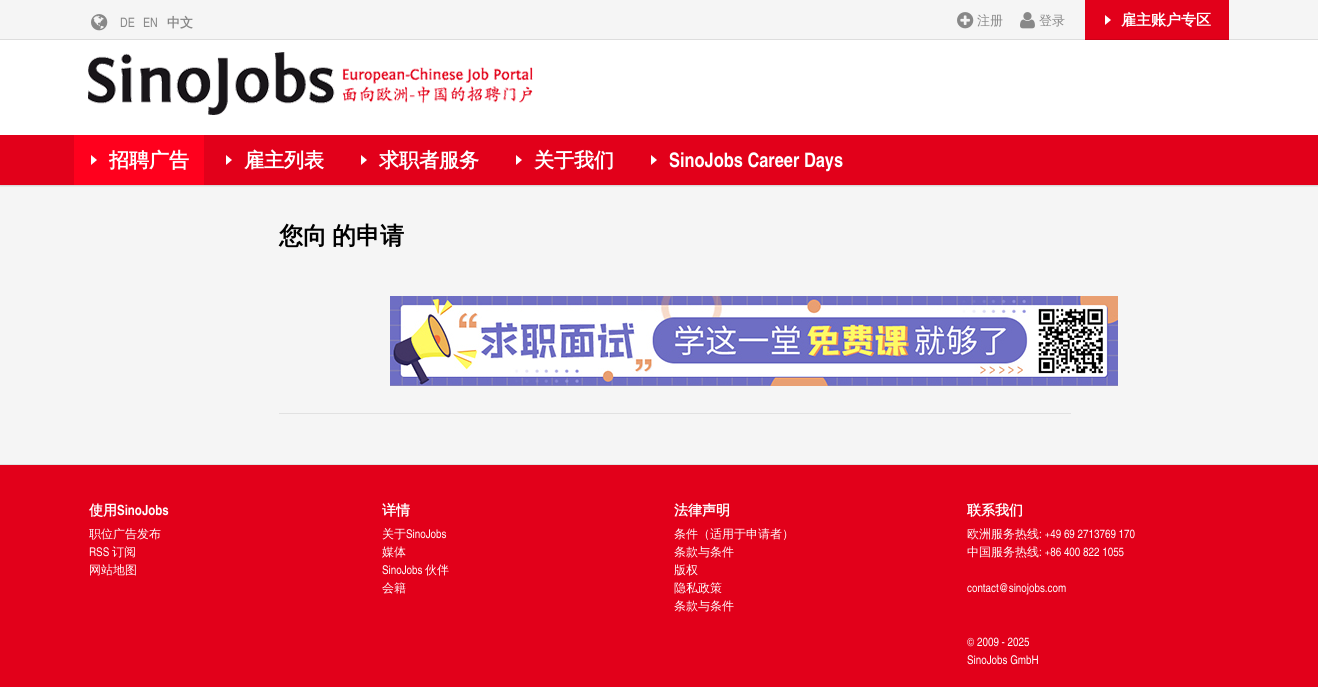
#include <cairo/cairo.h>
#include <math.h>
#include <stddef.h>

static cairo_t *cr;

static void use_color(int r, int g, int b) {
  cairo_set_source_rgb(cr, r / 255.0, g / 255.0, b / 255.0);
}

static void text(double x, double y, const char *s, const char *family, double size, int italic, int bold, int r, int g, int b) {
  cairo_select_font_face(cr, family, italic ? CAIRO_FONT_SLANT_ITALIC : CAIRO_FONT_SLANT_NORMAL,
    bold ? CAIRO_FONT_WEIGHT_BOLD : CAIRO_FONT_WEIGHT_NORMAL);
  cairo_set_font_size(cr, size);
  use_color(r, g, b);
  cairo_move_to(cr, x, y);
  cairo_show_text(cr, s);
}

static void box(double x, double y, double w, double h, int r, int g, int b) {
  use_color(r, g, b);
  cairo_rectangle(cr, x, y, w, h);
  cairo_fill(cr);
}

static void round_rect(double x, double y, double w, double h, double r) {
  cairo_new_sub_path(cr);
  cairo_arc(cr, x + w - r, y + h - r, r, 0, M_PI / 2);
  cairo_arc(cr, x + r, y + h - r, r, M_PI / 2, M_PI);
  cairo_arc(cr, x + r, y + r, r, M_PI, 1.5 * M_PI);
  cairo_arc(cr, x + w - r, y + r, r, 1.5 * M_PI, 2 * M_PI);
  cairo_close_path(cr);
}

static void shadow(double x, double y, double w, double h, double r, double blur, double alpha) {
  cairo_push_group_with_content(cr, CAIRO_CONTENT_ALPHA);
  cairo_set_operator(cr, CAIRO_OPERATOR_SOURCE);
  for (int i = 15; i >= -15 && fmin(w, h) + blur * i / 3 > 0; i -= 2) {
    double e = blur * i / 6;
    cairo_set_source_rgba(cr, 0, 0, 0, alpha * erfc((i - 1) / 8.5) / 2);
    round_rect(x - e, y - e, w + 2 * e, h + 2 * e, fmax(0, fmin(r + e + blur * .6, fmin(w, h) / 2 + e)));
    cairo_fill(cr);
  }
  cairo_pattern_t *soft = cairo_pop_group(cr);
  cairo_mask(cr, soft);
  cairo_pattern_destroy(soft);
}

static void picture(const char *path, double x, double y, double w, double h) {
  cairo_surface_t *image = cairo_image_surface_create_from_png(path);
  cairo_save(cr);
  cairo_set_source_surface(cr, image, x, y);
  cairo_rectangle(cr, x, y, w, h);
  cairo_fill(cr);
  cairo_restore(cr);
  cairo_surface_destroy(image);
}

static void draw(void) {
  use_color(255, 255, 255);
  cairo_paint(cr);
  box(0, 185, 1318, 279, 245, 245, 245);
  cairo_save(cr);
  cairo_rectangle(cr, 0, 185, 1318, 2);
  cairo_clip(cr);
  use_color(0, 0, 0);
  shadow(0, -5, 1318, 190, 0, 1.5, 0.3);
  cairo_restore(cr);
  box(0, 0, 1318, 39, 245, 245, 245);
  box(0, 39, 1318, 1, 221, 221, 221);
  picture("img_01.png", 91, 14, 17, 17);
  picture("img_02.png", 957, 12, 17, 17);
  picture("img_03.png", 1020, 12, 15, 17);
  box(1085, 0, 144, 39, 226, 0, 26);
  box(1085, 39, 144, 1, 203, 0, 23);
  use_color(255, 255, 255);
  cairo_new_path(cr);
  cairo_move_to(cr, 1105, 25);
  cairo_line_to(cr, 1105, 15);
  cairo_line_to(cr, 1111, 20);
  cairo_close_path(cr);
  cairo_fill(cr);
  box(0, 135, 1318, 50, 226, 0, 26);
  box(74, 135, 130, 50, 255, 0, 29);
  use_color(255, 255, 255);
  cairo_new_path(cr);
  cairo_move_to(cr, 91, 165);
  cairo_line_to(cr, 91, 155);
  cairo_line_to(cr, 97, 160);
  cairo_close_path(cr);
  cairo_fill(cr);
  cairo_new_path(cr);
  cairo_move_to(cr, 226, 165);
  cairo_line_to(cr, 226, 155);
  cairo_line_to(cr, 232, 160);
  cairo_close_path(cr);
  cairo_fill(cr);
  cairo_new_path(cr);
  cairo_move_to(cr, 361, 165);
  cairo_line_to(cr, 361, 155);
  cairo_line_to(cr, 367, 160);
  cairo_close_path(cr);
  cairo_fill(cr);
  cairo_new_path(cr);
  cairo_move_to(cr, 516, 165);
  cairo_line_to(cr, 516, 155);
  cairo_line_to(cr, 522, 160);
  cairo_close_path(cr);
  cairo_fill(cr);
  cairo_new_path(cr);
  cairo_move_to(cr, 651, 165);
  cairo_line_to(cr, 651, 155);
  cairo_line_to(cr, 657, 160);
  cairo_close_path(cr);
  cairo_fill(cr);
  picture("img_04.png", 88, 52, 445, 63);
  box(0, 464, 1318, 1, 225, 225, 225);
  picture("img_05.png", 390, 296, 728, 90);
  box(279, 413, 792, 1, 225, 225, 225);
  box(0, 465, 1318, 222, 226, 0, 26);
  text(120, 27, "DE", "TeX Gyre Heros Cn", 13, 0, 0, 136, 136, 136);
  text(143, 27, "EN", "TeX Gyre Heros Cn", 13, 0, 0, 136, 136, 136);
  text(167, 27, "中文", "WenQuanYi Zen Hei", 13, 0, 1, 136, 136, 136);
  text(977, 25, "注册", "WenQuanYi Zen Hei Medium", 13, 0, 0, 136, 136, 136);
  text(1039, 25, "登录", "WenQuanYi Zen Hei Medium", 13, 0, 0, 136, 136, 136);
  text(1121, 25, "雇主账户专区", "WenQuanYi Zen Hei", 15, 0, 1, 255, 255, 255);
  text(109, 167, "招聘广告", "WenQuanYi Zen Hei", 20, 0, 1, 255, 255, 255);
  text(244, 167, "雇主列表", "WenQuanYi Zen Hei", 20, 0, 1, 255, 255, 255);
  text(379, 167, "求职者服务", "WenQuanYi Zen Hei", 20, 0, 1, 255, 255, 255);
  text(534, 167, "关于我们", "WenQuanYi Zen Hei", 20, 0, 1, 255, 255, 255);
  text(669, 167, "SinoJobs Career Days", "TeX Gyre Heros Cn", 20, 0, 1, 255, 255, 255);
  text(279, 244, "您向", "WenQuanYi Zen Hei", 24, 0, 1, 0, 0, 0);
  text(332, 244, "的申请", "WenQuanYi Zen Hei", 24, 0, 1, 0, 0, 0);
  text(89, 515, "使用", "WenQuanYi Zen Hei", 14, 0, 1, 255, 255, 255);
  text(117, 515, "SinoJobs", "TeX Gyre Heros Cn", 14, 0, 1, 255, 255, 255);
  text(89, 538, "职位广告发布", "WenQuanYi Zen Hei Medium", 12, 0, 0, 255, 255, 255);
  text(89, 556, "RSS", "TeX Gyre Heros Cn", 12, 0, 0, 255, 255, 255);
  text(112, 556, "订阅", "WenQuanYi Zen Hei Medium", 12, 0, 0, 255, 255, 255);
  text(89, 574, "网站地图", "WenQuanYi Zen Hei Medium", 12, 0, 0, 255, 255, 255);
  text(382, 515, "详情", "WenQuanYi Zen Hei", 14, 0, 1, 255, 255, 255);
  text(382, 538, "关于", "WenQuanYi Zen Hei Medium", 12, 0, 0, 255, 255, 255);
  text(406, 538, "SinoJobs", "TeX Gyre Heros Cn", 12, 0, 0, 255, 255, 255);
  text(382, 556, "媒体", "WenQuanYi Zen Hei Medium", 12, 0, 0, 255, 255, 255);
  text(382, 574, "SinoJobs", "TeX Gyre Heros Cn", 12, 0, 0, 255, 255, 255);
  text(425, 574, "伙伴", "WenQuanYi Zen Hei Medium", 12, 0, 0, 255, 255, 255);
  text(382, 592, "会籍", "WenQuanYi Zen Hei Medium", 12, 0, 0, 255, 255, 255);
  text(674, 515, "法律声明", "WenQuanYi Zen Hei", 14, 0, 1, 255, 255, 255);
  text(674, 538, "条件（适用于申请者）", "WenQuanYi Zen Hei Medium", 12, 0, 0, 255, 255, 255);
  text(674, 556, "条款与条件", "WenQuanYi Zen Hei Medium", 12, 0, 0, 255, 255, 255);
  text(674, 574, "版权", "WenQuanYi Zen Hei Medium", 12, 0, 0, 255, 255, 255);
  text(674, 592, "隐私政策", "WenQuanYi Zen Hei Medium", 12, 0, 0, 255, 255, 255);
  text(674, 610, "条款与条件", "WenQuanYi Zen Hei Medium", 12, 0, 0, 255, 255, 255);
  text(967, 515, "联系我们", "WenQuanYi Zen Hei", 14, 0, 1, 255, 255, 255);
  text(967, 538, "欧洲服务热线", "WenQuanYi Zen Hei Medium", 12, 0, 0, 255, 255, 255);
  text(1039, 538, ": +49 69 2713769 170", "TeX Gyre Heros Cn", 12, 0, 0, 255, 255, 255);
  text(967, 556, "中国服务热线", "WenQuanYi Zen Hei Medium", 12, 0, 0, 255, 255, 255);
  text(1039, 556, ": +86 400 822 1055", "TeX Gyre Heros Cn", 12, 0, 0, 255, 255, 255);
  text(967, 592, "contact@sinojobs.com", "TeX Gyre Heros Cn", 12, 0, 0, 255, 255, 255);
  text(967, 646, "© 2009 - 2025", "TeX Gyre Heros Cn", 12, 0, 0, 255, 255, 255);
  text(967, 664, "SinoJobs GmbH", "TeX Gyre Heros Cn", 12, 0, 0, 255, 255, 255);
}

int main(void) {
  cairo_surface_t *surface = cairo_image_surface_create(CAIRO_FORMAT_RGB24, 1318, 687);
  cr = cairo_create(surface);
  cairo_font_options_t *options = cairo_font_options_create();
  cairo_font_options_set_hint_metrics(options, CAIRO_HINT_METRICS_OFF);
  cairo_font_options_set_hint_style(options, CAIRO_HINT_STYLE_NONE);
  cairo_set_font_options(cr, options);
  cairo_set_miter_limit(cr, 4);
  draw();
  cairo_surface_write_to_png(surface, "out.png");
  cairo_font_options_destroy(options);
  cairo_destroy(cr);
  cairo_surface_destroy(surface);
  return 0;
}
